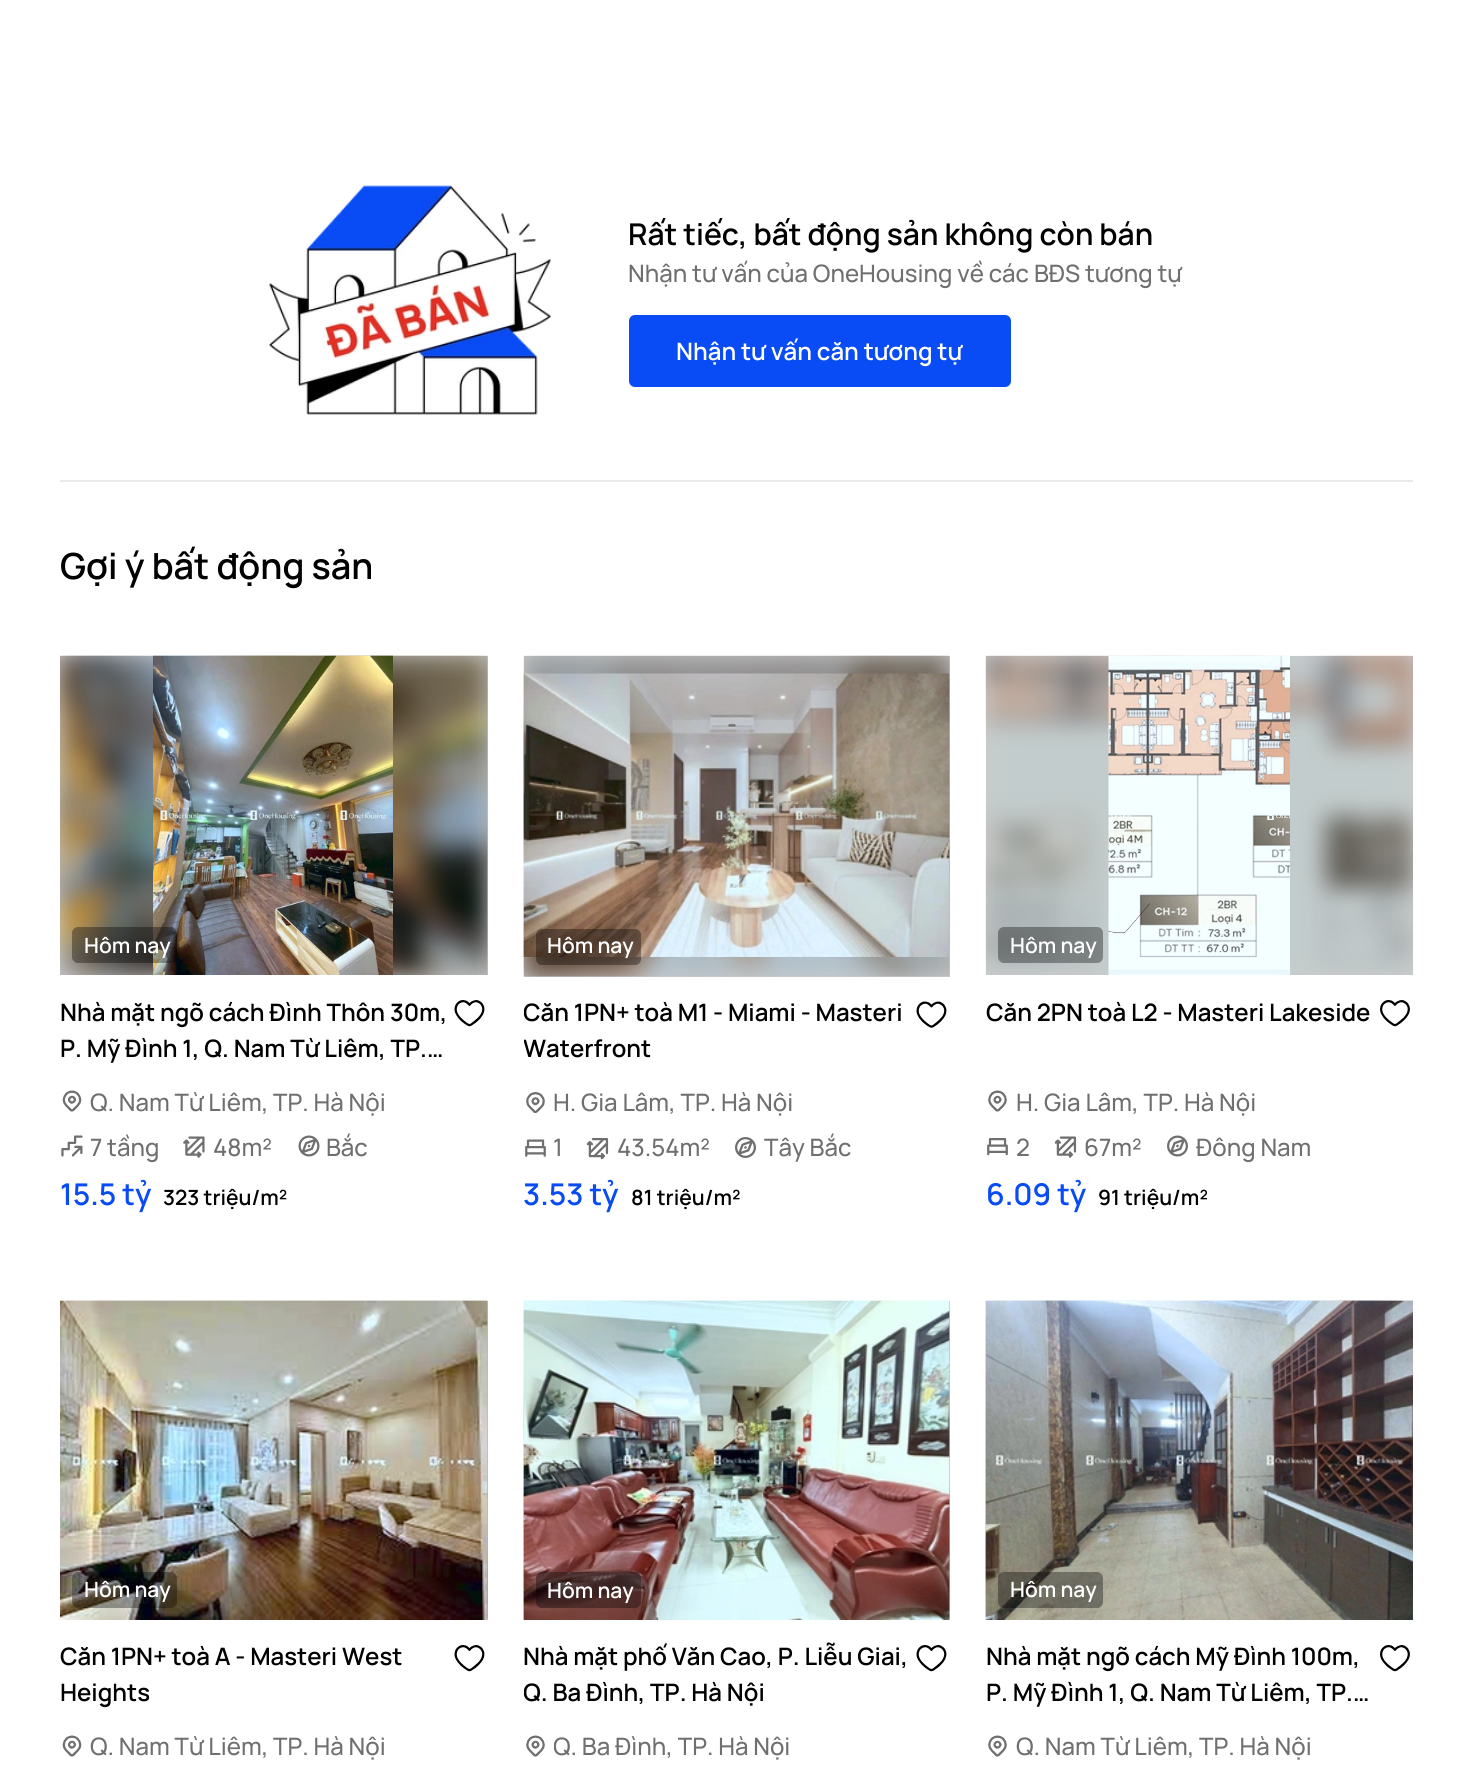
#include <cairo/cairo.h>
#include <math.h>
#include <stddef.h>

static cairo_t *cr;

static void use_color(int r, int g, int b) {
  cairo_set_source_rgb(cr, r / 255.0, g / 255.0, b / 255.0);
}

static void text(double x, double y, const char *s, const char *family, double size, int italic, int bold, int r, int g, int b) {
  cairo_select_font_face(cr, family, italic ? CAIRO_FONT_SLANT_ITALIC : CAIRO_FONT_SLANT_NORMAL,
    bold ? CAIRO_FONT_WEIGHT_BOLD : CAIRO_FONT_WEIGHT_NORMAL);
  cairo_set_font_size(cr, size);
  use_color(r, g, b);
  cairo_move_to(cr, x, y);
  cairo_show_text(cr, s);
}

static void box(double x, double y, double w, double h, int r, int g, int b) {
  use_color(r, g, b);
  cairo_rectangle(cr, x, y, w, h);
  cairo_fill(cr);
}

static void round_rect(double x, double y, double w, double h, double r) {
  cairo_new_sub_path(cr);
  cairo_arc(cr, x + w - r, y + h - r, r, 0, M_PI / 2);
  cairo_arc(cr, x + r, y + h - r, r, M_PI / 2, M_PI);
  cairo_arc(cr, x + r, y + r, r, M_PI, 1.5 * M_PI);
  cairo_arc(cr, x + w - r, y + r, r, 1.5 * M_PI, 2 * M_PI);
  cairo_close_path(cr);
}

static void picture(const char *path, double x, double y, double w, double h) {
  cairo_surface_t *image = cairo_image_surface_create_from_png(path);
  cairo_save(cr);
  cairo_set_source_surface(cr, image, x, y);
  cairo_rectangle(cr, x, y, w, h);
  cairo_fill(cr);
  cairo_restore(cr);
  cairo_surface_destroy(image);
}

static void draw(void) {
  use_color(255, 255, 255);
  cairo_paint(cr);
  box(949, 1301, 1, 319, 204, 204, 204);
  box(487, 1301, 1, 319, 204, 204, 204);
  box(986, 656, 427, 319, 204, 204, 204);
  box(524, 656, 426, 321, 204, 204, 204);
  box(60, 656, 428, 319, 204, 204, 204);
  picture("img_01.png", 269, 185, 282, 230);
  use_color(9, 75, 244);
  round_rect(629, 315, 382, 72, 6);
  cairo_fill(cr);
  box(60, 480, 1353, 2, 234, 234, 234);
  picture("img_02.png", 60, 655, 428, 320);
  picture("img_03.png", 153, 655, 240, 320);
  picture("img_04.png", 480, 656, 8, 319);
  cairo_set_source_rgba(cr, 0, 0, 0, 0.35);
  round_rect(72, 927, 105, 36, 6);
  cairo_fill(cr);
  picture("img_05.png", 454, 1000, 31, 27);
  picture("img_06.png", 62, 1090, 20, 22);
  picture("img_07.png", 61, 1135, 22, 22);
  picture("img_08.png", 183, 1136, 22, 22);
  picture("img_09.png", 298, 1135, 22, 22);
  picture("img_10.png", 523, 655, 427, 322);
  picture("img_12.png", 942, 656, 8, 320);
  picture("img_11.png", 523, 673, 427, 284);
  round_rect(536, 929, 105, 36, 6);
  cairo_fill(cr);
  picture("img_13.png", 916, 1001, 31, 27);
  picture("img_14.png", 526, 1092, 19, 21);
  picture("img_15.png", 525, 1139, 21, 18);
  picture("img_16.png", 586, 1138, 23, 22);
  picture("img_17.png", 735, 1137, 21, 21);
  picture("img_18.png", 985, 655, 428, 320);
  picture("img_19.png", 1108, 655, 182, 320);
  picture("img_20.png", 1410, 657, 3, 196);
  round_rect(998, 927, 105, 36, 6);
  cairo_fill(cr);
  picture("img_21.png", 1380, 1000, 30, 27);
  picture("img_22.png", 988, 1090, 19, 22);
  picture("img_23.png", 987, 1138, 21, 18);
  picture("img_24.png", 1054, 1136, 23, 22);
  picture("img_25.png", 1167, 1135, 21, 22);
  picture("img_26.png", 60, 1300, 428, 320);
  picture("img_28.png", 487, 1313, 1, 307);
  picture("img_27.png", 60, 1300, 428, 320);
  round_rect(72, 1572, 105, 36, 6);
  cairo_fill(cr);
  picture("img_29.png", 454, 1645, 31, 27);
  picture("img_06.png", 62, 1735, 20, 22);
  picture("img_30.png", 523, 1300, 427, 320);
  picture("img_32.png", 949, 1461, 1, 159);
  picture("img_31.png", 523, 1300, 427, 320);
  round_rect(536, 1572, 105, 36, 6);
  cairo_fill(cr);
  picture("img_29.png", 916, 1645, 31, 27);
  picture("img_22.png", 526, 1735, 19, 22);
  picture("img_33.png", 985, 1300, 428, 320);
  picture("img_34.png", 985, 1300, 428, 320);
  round_rect(998, 1572, 105, 36, 6);
  cairo_fill(cr);
  picture("img_35.png", 1380, 1645, 30, 27);
  picture("img_22.png", 988, 1735, 19, 22);
  text(628, 245, "Rất tiếc, bất động sản không còn bán", "Manrope SemiBold", 30, 0, 0, 0, 0, 0);
  text(628, 282, "Nhận tư vấn của OneHousing về các BĐS tương tự", "Manrope Medium", 24, 0, 0, 111, 111, 111);
  text(676, 360, "Nhận tư vấn căn tương tự", "Manrope SemiBold", 24, 0, 0, 255, 255, 255);
  text(60, 579, "Gợi ý bất động sản", "Manrope SemiBold", 36, 0, 0, 0, 0, 0);
  text(84, 953, "Hôm nay", "Manrope SemiBold", 21, 0, 0, 255, 255, 255);
  text(60, 1021, "Nhà mặt ngõ cách Đình Thôn 30m,", "Manrope SemiBold", 24, 0, 0, 0, 0, 0);
  text(60, 1057, "P. Mỹ Đình 1, Q. Nam Từ Liêm, TP.…", "Manrope SemiBold", 24, 0, 0, 0, 0, 0);
  text(90, 1111, "Q. Nam Từ Liêm, TP. Hà Nội", "Manrope Medium", 24, 0, 0, 111, 111, 111);
  text(90, 1156, "7 tầng", "Manrope Medium", 24, 0, 0, 111, 111, 111);
  text(213, 1156, "48m²", "Manrope Medium", 24, 0, 0, 111, 111, 111);
  text(326, 1156, "Bắc", "Manrope Medium", 24, 0, 0, 111, 111, 111);
  text(60, 1205, "15.5 tỷ", "Manrope SemiBold", 30, 0, 0, 9, 75, 244);
  text(163, 1205, "323 triệu/m²", "Manrope SemiBold", 21, 0, 0, 0, 0, 0);
  text(547, 953, "Hôm nay", "Manrope SemiBold", 21, 0, 0, 255, 255, 255);
  cairo_save(cr);
  cairo_rectangle(cr, 524, 995, 390, 78);
  cairo_clip(cr);
  text(523, 1021, "Căn 1PN+ toà M1 - Miami - Masteri", "Manrope SemiBold", 24, 0, 0, 0, 0, 0);
  text(523, 1057, "Waterfront", "Manrope SemiBold", 24, 0, 0, 0, 0, 0);
  cairo_restore(cr);
  text(553, 1111, "H. Gia Lâm, TP. Hà Nội", "Manrope Medium", 24, 0, 0, 111, 111, 111);
  text(553, 1156, "1", "Manrope Medium", 24, 0, 0, 111, 111, 111);
  text(617, 1156, "43.54m²", "Manrope Medium", 24, 0, 0, 111, 111, 111);
  text(764, 1156, "Tây Bắc", "Manrope Medium", 24, 0, 0, 111, 111, 111);
  text(523, 1205, "3.53 tỷ", "Manrope SemiBold", 30, 0, 0, 9, 75, 244);
  text(631, 1205, "81 triệu/m²", "Manrope SemiBold", 21, 0, 0, 0, 0, 0);
  text(1010, 953, "Hôm nay", "Manrope SemiBold", 21, 0, 0, 255, 255, 255);
  text(986, 1021, "Căn 2PN toà L2 - Masteri Lakeside", "Manrope SemiBold", 24, 0, 0, 0, 0, 0);
  text(1016, 1111, "H. Gia Lâm, TP. Hà Nội", "Manrope Medium", 24, 0, 0, 111, 111, 111);
  text(1016, 1156, "2", "Manrope Medium", 24, 0, 0, 111, 111, 111);
  text(1084, 1156, "67m²", "Manrope Medium", 24, 0, 0, 111, 111, 111);
  text(1196, 1156, "Đông Nam", "Manrope Medium", 24, 0, 0, 111, 111, 111);
  text(986, 1205, "6.09 tỷ", "Manrope SemiBold", 30, 0, 0, 9, 75, 244);
  text(1098, 1205, "91 triệu/m²", "Manrope SemiBold", 21, 0, 0, 0, 0, 0);
  text(84, 1597, "Hôm nay", "Manrope SemiBold", 21, 0, 0, 255, 255, 255);
  text(60, 1665, "Căn 1PN+ toà A - Masteri West", "Manrope SemiBold", 24, 0, 0, 0, 0, 0);
  text(60, 1701, "Heights", "Manrope SemiBold", 24, 0, 0, 0, 0, 0);
  text(90, 1755, "Q. Nam Từ Liêm, TP. Hà Nội", "Manrope Medium", 24, 0, 0, 111, 111, 111);
  text(547, 1598, "Hôm nay", "Manrope SemiBold", 21, 0, 0, 255, 255, 255);
  text(523, 1665, "Nhà mặt phố Văn Cao, P. Liễu Giai,", "Manrope SemiBold", 24, 0, 0, 0, 0, 0);
  cairo_save(cr);
  cairo_rectangle(cr, 524, 1638, 390, 78);
  cairo_clip(cr);
  text(523, 1701, "Q. Ba Đình, TP. Hà Nội", "Manrope SemiBold", 24, 0, 0, 0, 0, 0);
  cairo_restore(cr);
  cairo_save(cr);
  cairo_rectangle(cr, 554, 1728, 237, 36);
  cairo_clip(cr);
  text(553, 1755, "Q. Ba Đình, TP. Hà Nội", "Manrope Medium", 24, 0, 0, 111, 111, 111);
  cairo_restore(cr);
  text(1010, 1597, "Hôm nay", "Manrope SemiBold", 21, 0, 0, 255, 255, 255);
  text(986, 1665, "Nhà mặt ngõ cách Mỹ Đình 100m,", "Manrope SemiBold", 24, 0, 0, 0, 0, 0);
  text(986, 1701, "P. Mỹ Đình 1, Q. Nam Từ Liêm, TP.…", "Manrope SemiBold", 24, 0, 0, 0, 0, 0);
  text(1016, 1755, "Q. Nam Từ Liêm, TP. Hà Nội", "Manrope Medium", 24, 0, 0, 111, 111, 111);
}

int main(void) {
  cairo_surface_t *surface = cairo_image_surface_create(CAIRO_FORMAT_RGB24, 1472, 1766);
  cr = cairo_create(surface);
  cairo_font_options_t *options = cairo_font_options_create();
  cairo_font_options_set_hint_metrics(options, CAIRO_HINT_METRICS_OFF);
  cairo_font_options_set_hint_style(options, CAIRO_HINT_STYLE_NONE);
  cairo_set_font_options(cr, options);
  cairo_set_miter_limit(cr, 4);
  draw();
  cairo_surface_write_to_png(surface, "out.png");
  cairo_font_options_destroy(options);
  cairo_destroy(cr);
  cairo_surface_destroy(surface);
  return 0;
}
